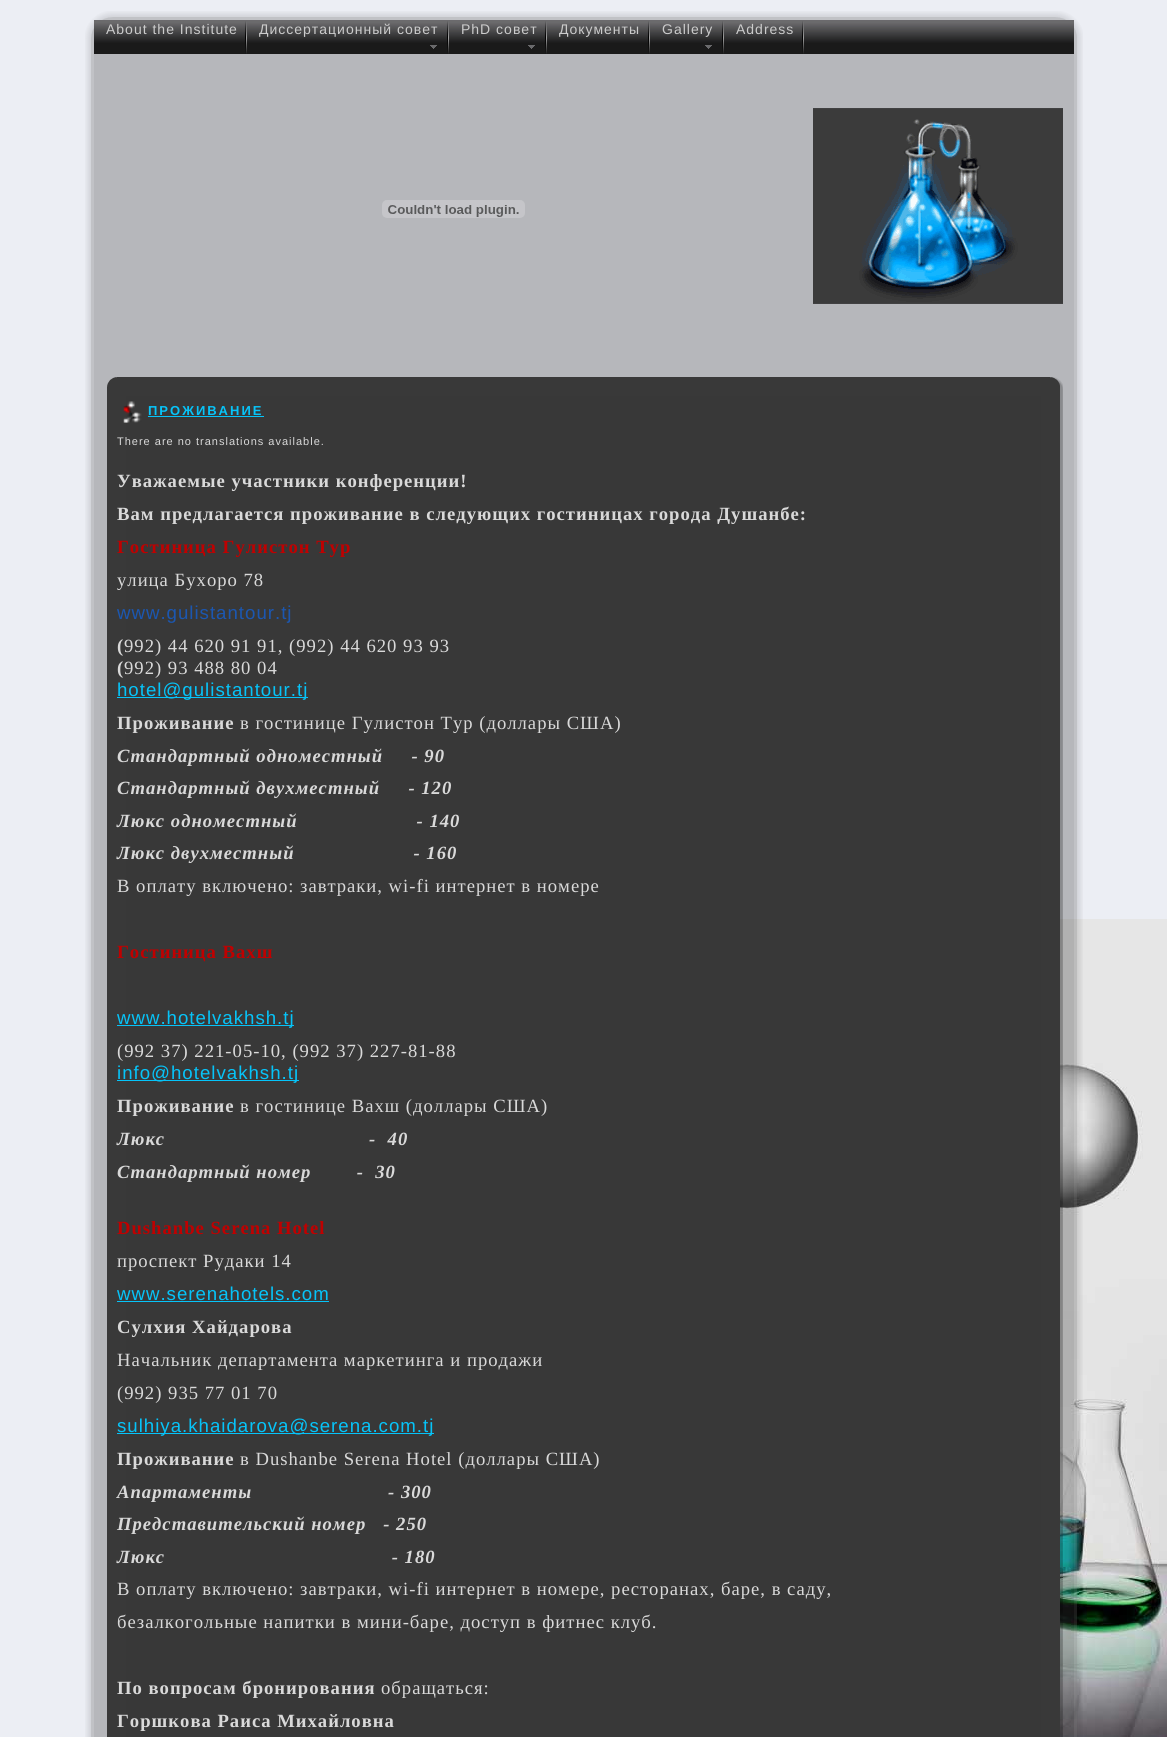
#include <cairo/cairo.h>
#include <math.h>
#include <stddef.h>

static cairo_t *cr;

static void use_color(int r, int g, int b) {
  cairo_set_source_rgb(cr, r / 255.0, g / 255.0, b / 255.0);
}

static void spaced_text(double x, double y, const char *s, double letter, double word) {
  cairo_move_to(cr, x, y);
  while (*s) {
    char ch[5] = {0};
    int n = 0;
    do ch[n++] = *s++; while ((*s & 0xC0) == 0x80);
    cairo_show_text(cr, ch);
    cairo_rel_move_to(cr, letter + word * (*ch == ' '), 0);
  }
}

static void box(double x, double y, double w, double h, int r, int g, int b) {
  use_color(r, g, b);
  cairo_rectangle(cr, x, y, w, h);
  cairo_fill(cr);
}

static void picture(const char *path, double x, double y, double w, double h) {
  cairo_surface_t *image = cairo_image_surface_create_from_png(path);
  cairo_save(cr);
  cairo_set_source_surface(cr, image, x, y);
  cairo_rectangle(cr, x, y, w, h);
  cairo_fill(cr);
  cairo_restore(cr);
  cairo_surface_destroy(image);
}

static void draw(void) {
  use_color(236, 238, 244);
  cairo_paint(cr);
  picture("img_01.png", 1060, 919, 107, 818);
  picture("img_02.png", 85, 11, 49, 49);
  picture("img_03.png", 134, 11, 900, 49);
  picture("img_04.png", 1034, 11, 49, 49);
  picture("img_05.png", 94, 20, 980, 34);
  picture("img_06.png", 245, 21, 2, 33);
  picture("img_06.png", 447, 21, 2, 33);
  picture("img_07.png", 430, 45, 7, 4);
  picture("img_06.png", 545, 21, 2, 33);
  picture("img_07.png", 528, 45, 7, 4);
  picture("img_06.png", 648, 21, 2, 33);
  picture("img_06.png", 722, 21, 2, 33);
  picture("img_07.png", 705, 45, 7, 4);
  picture("img_06.png", 802, 21, 2, 33);
  cairo_set_source_rgba(cr, 0.212, 0.212, 0.212, 0.3);
  cairo_rectangle(cr, 134, 60, 900, 317);
  cairo_fill(cr);
  picture("img_08.png", 382, 200, 143, 18);
  picture("img_15.png", 1034, 60, 49, 1677);
  picture("img_09.png", 813, 108, 250, 196);
  picture("img_14.png", 85, 60, 49, 1677);
  picture("img_10.png", 107, 377, 19, 19);
  box(126, 377, 915, 19, 57, 57, 57);
  picture("img_11.png", 1041, 377, 22, 19);
  box(107, 396, 19, 1341, 57, 57, 57);
  box(126, 396, 915, 1341, 56, 56, 56);
  picture("img_12.png", 1041, 396, 22, 1341);
  picture("img_13.png", 123, 401, 19, 22);
  box(148, 416, 116, 1, 6, 196, 249);
  box(117, 697, 191, 1, 6, 196, 249);
  box(117, 1025, 177, 1, 6, 196, 249);
  box(117, 1080, 182, 1, 6, 196, 249);
  box(117, 1301, 212, 1, 6, 196, 249);
  box(117, 1433, 317, 1, 6, 196, 249);
  cairo_select_font_face(cr, "Liberation Sans", CAIRO_FONT_SLANT_NORMAL, CAIRO_FONT_WEIGHT_NORMAL);
  cairo_set_font_size(cr, 14);
  use_color(204, 204, 204);
  spaced_text(106, 34, "About the Institute", 1, 0);
  spaced_text(259, 34, "Диссертационный совет", 1, 0);
  spaced_text(461, 34, "PhD совет", 1, 0);
  spaced_text(559, 34, "Документы", 1, 0);
  spaced_text(662, 34, "Gallery", 1, 0);
  spaced_text(736, 34, "Address", 1, 0);
  cairo_select_font_face(cr, "Liberation Sans", CAIRO_FONT_SLANT_NORMAL, CAIRO_FONT_WEIGHT_BOLD);
  cairo_set_font_size(cr, 13);
  use_color(6, 196, 249);
  spaced_text(148, 415, "ПРОЖИВАНИЕ", 2, 0);
  cairo_select_font_face(cr, "Liberation Sans", CAIRO_FONT_SLANT_NORMAL, CAIRO_FONT_WEIGHT_NORMAL);
  cairo_set_font_size(cr, 11);
  use_color(217, 217, 217);
  spaced_text(117, 445, "There are no translations available.", 1, 0);
  cairo_select_font_face(cr, "Liberation Serif", CAIRO_FONT_SLANT_NORMAL, CAIRO_FONT_WEIGHT_BOLD);
  cairo_set_font_size(cr, 18.65);
  spaced_text(117, 487, "Уважаемые участники конференции!", 1, 0);
  spaced_text(117, 520, "Вам предлагается проживание в следующих гостиницах города Душанбе:", 1, 0);
  use_color(192, 0, 0);
  spaced_text(117, 553, "Гостиница Гулистон Тур", 1, 0);
  cairo_select_font_face(cr, "Liberation Serif", CAIRO_FONT_SLANT_NORMAL, CAIRO_FONT_WEIGHT_NORMAL);
  use_color(217, 217, 217);
  spaced_text(117, 586, "улица Бухоро 78", 1, 0);
  cairo_select_font_face(cr, "Liberation Sans", CAIRO_FONT_SLANT_NORMAL, CAIRO_FONT_WEIGHT_NORMAL);
  use_color(27, 87, 177);
  spaced_text(117, 619, "www.gulistantour.tj", 1, 0);
  cairo_select_font_face(cr, "Liberation Serif", CAIRO_FONT_SLANT_NORMAL, CAIRO_FONT_WEIGHT_BOLD);
  use_color(217, 217, 217);
  spaced_text(117, 652, "(", 1, 0);
  cairo_select_font_face(cr, "Liberation Serif", CAIRO_FONT_SLANT_NORMAL, CAIRO_FONT_WEIGHT_NORMAL);
  spaced_text(124, 652, "992) 44 620 91 91, (992) 44 620 93 93", 1, 0);
  cairo_select_font_face(cr, "Liberation Serif", CAIRO_FONT_SLANT_NORMAL, CAIRO_FONT_WEIGHT_BOLD);
  spaced_text(117, 674, "(", 1, 0);
  cairo_select_font_face(cr, "Liberation Serif", CAIRO_FONT_SLANT_NORMAL, CAIRO_FONT_WEIGHT_NORMAL);
  spaced_text(124, 674, "992) 93 488 80 04", 1, 0);
  cairo_select_font_face(cr, "Liberation Sans", CAIRO_FONT_SLANT_NORMAL, CAIRO_FONT_WEIGHT_NORMAL);
  use_color(6, 196, 249);
  spaced_text(117, 696, "hotel@gulistantour.tj", 1, 0);
  cairo_select_font_face(cr, "Liberation Serif", CAIRO_FONT_SLANT_NORMAL, CAIRO_FONT_WEIGHT_BOLD);
  use_color(217, 217, 217);
  spaced_text(117, 729, "Проживание", 1, 0);
  cairo_select_font_face(cr, "Liberation Serif", CAIRO_FONT_SLANT_NORMAL, CAIRO_FONT_WEIGHT_NORMAL);
  spaced_text(240, 729, "в гостинице Гулистон Тур (доллары США)", 1, 0);
  cairo_select_font_face(cr, "Liberation Serif", CAIRO_FONT_SLANT_ITALIC, CAIRO_FONT_WEIGHT_BOLD);
  spaced_text(117, 762, "Стандартный одноместный     - 90", 1, 0);
  spaced_text(117, 794, "Стандартный двухместный     - 120", 1, 0);
  spaced_text(117, 827, "Люкс одноместный                     - 140", 1, 0);
  spaced_text(117, 859, "Люкс двухместный                     - 160", 1, 0);
  cairo_select_font_face(cr, "Liberation Serif", CAIRO_FONT_SLANT_NORMAL, CAIRO_FONT_WEIGHT_NORMAL);
  spaced_text(117, 892, "В оплату включено: завтраки, wi-fi интернет в номере", 1, 0);
  cairo_select_font_face(cr, "Liberation Serif", CAIRO_FONT_SLANT_NORMAL, CAIRO_FONT_WEIGHT_BOLD);
  use_color(192, 0, 0);
  spaced_text(117, 958, "Гостиница Вахш", 1, 0);
  cairo_select_font_face(cr, "Liberation Sans", CAIRO_FONT_SLANT_NORMAL, CAIRO_FONT_WEIGHT_NORMAL);
  use_color(6, 196, 249);
  spaced_text(117, 1024, "www.hotelvakhsh.tj", 1, 0);
  cairo_select_font_face(cr, "Liberation Serif", CAIRO_FONT_SLANT_NORMAL, CAIRO_FONT_WEIGHT_NORMAL);
  use_color(217, 217, 217);
  spaced_text(117, 1057, "(992 37) 221-05-10, (992 37) 227-81-88", 1, 0);
  cairo_select_font_face(cr, "Liberation Sans", CAIRO_FONT_SLANT_NORMAL, CAIRO_FONT_WEIGHT_NORMAL);
  use_color(6, 196, 249);
  spaced_text(117, 1079, "info@hotelvakhsh.tj", 1, 0);
  cairo_select_font_face(cr, "Liberation Serif", CAIRO_FONT_SLANT_NORMAL, CAIRO_FONT_WEIGHT_BOLD);
  use_color(217, 217, 217);
  spaced_text(117, 1112, "Проживание", 1, 0);
  cairo_select_font_face(cr, "Liberation Serif", CAIRO_FONT_SLANT_NORMAL, CAIRO_FONT_WEIGHT_NORMAL);
  spaced_text(240, 1112, "в гостинице Вахш (доллары США)", 1, 0);
  cairo_select_font_face(cr, "Liberation Serif", CAIRO_FONT_SLANT_ITALIC, CAIRO_FONT_WEIGHT_BOLD);
  spaced_text(117, 1145, "Люкс                                    -  40", 1, 0);
  spaced_text(117, 1178, "Стандартный номер        -  30", 1, 0);
  cairo_select_font_face(cr, "Liberation Serif", CAIRO_FONT_SLANT_NORMAL, CAIRO_FONT_WEIGHT_BOLD);
  use_color(192, 0, 0);
  spaced_text(117, 1234, "Dushanbe Serena Hotel", 1, 0);
  cairo_select_font_face(cr, "Liberation Serif", CAIRO_FONT_SLANT_NORMAL, CAIRO_FONT_WEIGHT_NORMAL);
  use_color(217, 217, 217);
  spaced_text(117, 1267, "проспект Рудаки 14", 1, 0);
  cairo_select_font_face(cr, "Liberation Sans", CAIRO_FONT_SLANT_NORMAL, CAIRO_FONT_WEIGHT_NORMAL);
  use_color(6, 196, 249);
  spaced_text(117, 1300, "www.serenahotels.com", 1, 0);
  cairo_select_font_face(cr, "Liberation Serif", CAIRO_FONT_SLANT_NORMAL, CAIRO_FONT_WEIGHT_BOLD);
  use_color(217, 217, 217);
  spaced_text(117, 1333, "Сулхия Хайдарова", 1, 0);
  cairo_select_font_face(cr, "Liberation Serif", CAIRO_FONT_SLANT_NORMAL, CAIRO_FONT_WEIGHT_NORMAL);
  spaced_text(117, 1366, "Начальник департамента маркетинга и продажи", 1, 0);
  spaced_text(117, 1399, "(992) 935 77 01 70", 1, 0);
  cairo_select_font_face(cr, "Liberation Sans", CAIRO_FONT_SLANT_NORMAL, CAIRO_FONT_WEIGHT_NORMAL);
  use_color(6, 196, 249);
  spaced_text(117, 1432, "sulhiya.khaidarova@serena.com.tj", 1, 0);
  cairo_select_font_face(cr, "Liberation Serif", CAIRO_FONT_SLANT_NORMAL, CAIRO_FONT_WEIGHT_BOLD);
  use_color(217, 217, 217);
  spaced_text(117, 1465, "Проживание", 1, 0);
  cairo_select_font_face(cr, "Liberation Serif", CAIRO_FONT_SLANT_NORMAL, CAIRO_FONT_WEIGHT_NORMAL);
  spaced_text(240, 1465, "в Dushanbe Serena Hotel (доллары США)", 1, 0);
  cairo_select_font_face(cr, "Liberation Serif", CAIRO_FONT_SLANT_ITALIC, CAIRO_FONT_WEIGHT_BOLD);
  spaced_text(117, 1498, "Апартаменты                        - 300", 1, 0);
  spaced_text(117, 1530, "Представительский номер   - 250", 1, 0);
  spaced_text(117, 1563, "Люкс                                        - 180", 1, 0);
  cairo_select_font_face(cr, "Liberation Serif", CAIRO_FONT_SLANT_NORMAL, CAIRO_FONT_WEIGHT_NORMAL);
  spaced_text(117, 1595, "В оплату включено: завтраки, wi-fi интернет в номере, ресторанах, баре, в саду,", 1, 0);
  spaced_text(117, 1628, "безалкогольные напитки в мини-баре, доступ в фитнес клуб.", 1, 0);
  cairo_select_font_face(cr, "Liberation Serif", CAIRO_FONT_SLANT_NORMAL, CAIRO_FONT_WEIGHT_BOLD);
  spaced_text(117, 1694, "По вопросам бронирования", 1, 0);
  cairo_select_font_face(cr, "Liberation Serif", CAIRO_FONT_SLANT_NORMAL, CAIRO_FONT_WEIGHT_NORMAL);
  spaced_text(381, 1694, "обращаться:", 1, 0);
  cairo_select_font_face(cr, "Liberation Serif", CAIRO_FONT_SLANT_NORMAL, CAIRO_FONT_WEIGHT_BOLD);
  spaced_text(117, 1727, "Горшкова Раиса Михайловна", 1, 0);
}

int main(void) {
  cairo_surface_t *surface = cairo_image_surface_create(CAIRO_FORMAT_RGB24, 1167, 1737);
  cr = cairo_create(surface);
  cairo_font_options_t *options = cairo_font_options_create();
  cairo_font_options_set_hint_metrics(options, CAIRO_HINT_METRICS_OFF);
  cairo_font_options_set_hint_style(options, CAIRO_HINT_STYLE_NONE);
  cairo_set_font_options(cr, options);
  cairo_set_miter_limit(cr, 4);
  draw();
  cairo_surface_write_to_png(surface, "out.png");
  cairo_font_options_destroy(options);
  cairo_destroy(cr);
  cairo_surface_destroy(surface);
  return 0;
}
